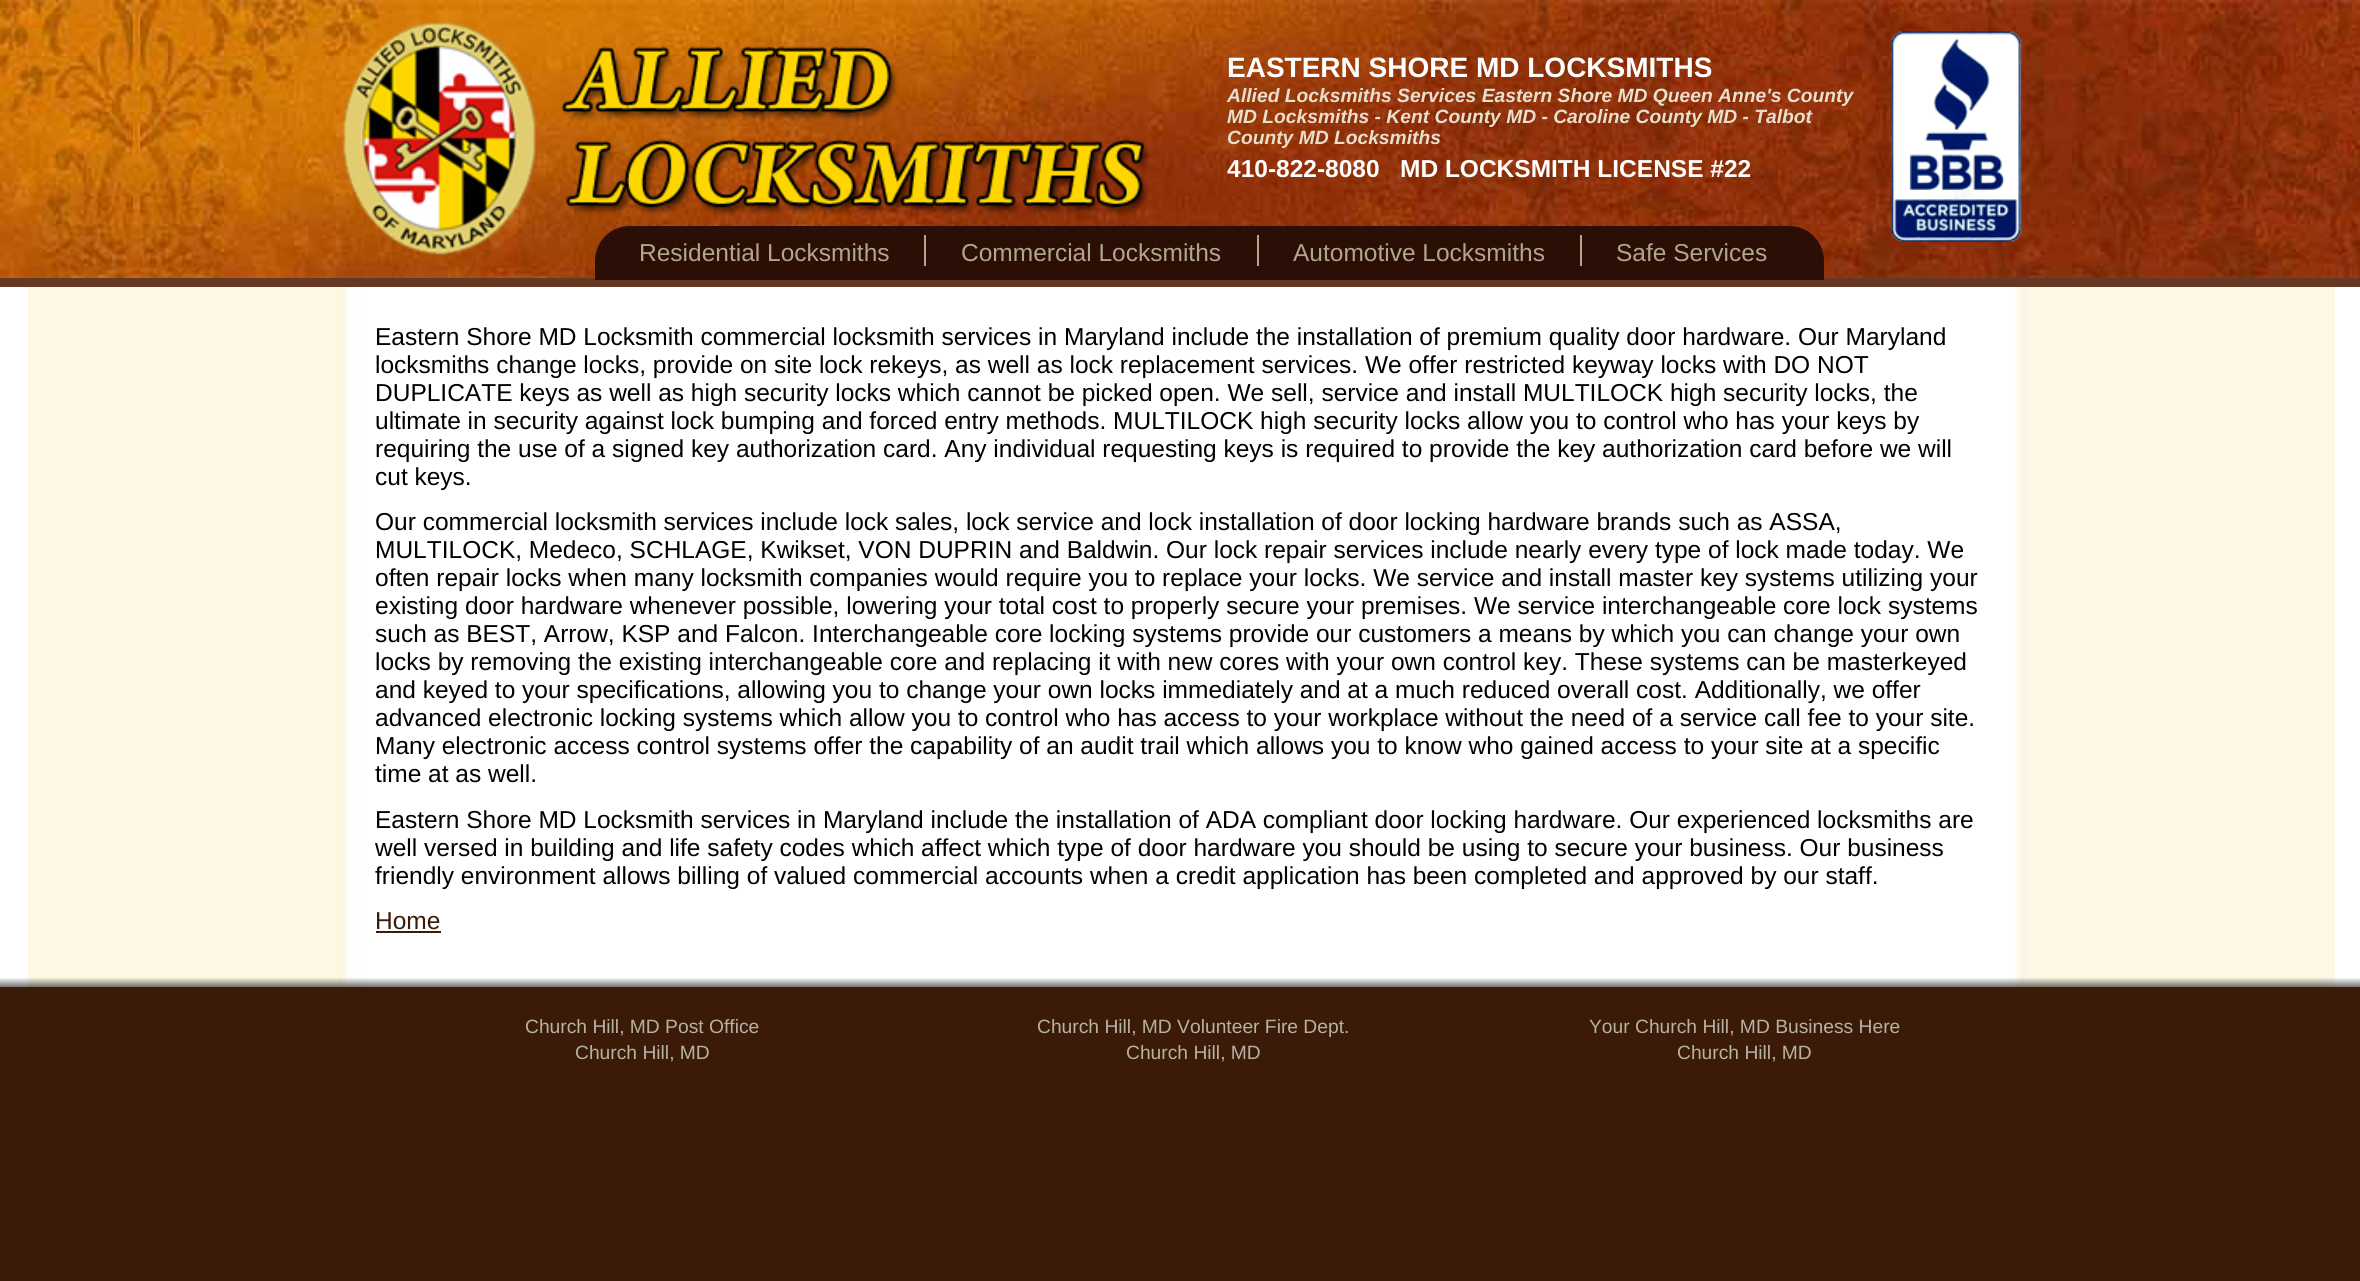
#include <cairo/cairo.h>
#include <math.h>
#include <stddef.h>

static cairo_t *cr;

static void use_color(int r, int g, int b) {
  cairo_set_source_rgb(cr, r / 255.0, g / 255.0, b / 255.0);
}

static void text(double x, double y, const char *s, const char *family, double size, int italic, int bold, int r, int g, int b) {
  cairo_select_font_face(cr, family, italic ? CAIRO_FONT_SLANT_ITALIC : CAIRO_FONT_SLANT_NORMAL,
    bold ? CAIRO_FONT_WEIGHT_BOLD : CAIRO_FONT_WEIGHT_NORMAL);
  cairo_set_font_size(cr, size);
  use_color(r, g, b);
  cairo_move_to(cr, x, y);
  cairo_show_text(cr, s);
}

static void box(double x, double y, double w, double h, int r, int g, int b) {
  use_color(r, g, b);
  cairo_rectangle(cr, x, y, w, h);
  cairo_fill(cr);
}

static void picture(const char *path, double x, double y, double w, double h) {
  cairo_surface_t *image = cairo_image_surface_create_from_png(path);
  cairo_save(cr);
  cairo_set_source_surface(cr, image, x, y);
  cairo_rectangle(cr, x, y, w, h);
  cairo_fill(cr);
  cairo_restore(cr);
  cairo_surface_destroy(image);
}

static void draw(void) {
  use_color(59, 27, 8);
  cairo_paint(cr);
  picture("img_01.png", 0, 0, 2360, 278);
  picture("img_02.png", 342, 22, 194, 234);
  picture("img_03.png", 561, 46, 589, 170);
  picture("img_04.png", 1891, 31, 131, 211);
  box(0, 278, 2360, 9, 100, 56, 35);
  use_color(43, 14, 5);
  cairo_new_path(cr);
  cairo_move_to(cr, 630, 226);
  cairo_line_to(cr, 1789, 226);
  cairo_curve_to(cr, 1808.5, 226, 1824, 241.5, 1824, 261);
  cairo_line_to(cr, 1824, 280);
  cairo_line_to(cr, 595, 280);
  cairo_line_to(cr, 595, 261);
  cairo_curve_to(cr, 595, 241.5, 610.5, 226, 630, 226);
  cairo_close_path(cr);
  cairo_fill(cr);
  box(924, 235, 2, 31, 177, 166, 140);
  box(1257, 235, 2, 31, 177, 166, 140);
  box(1580, 235, 2, 31, 177, 166, 140);
  box(0, 287, 2360, 700, 255, 255, 255);
  picture("img_05.png", 28, 287, 2307, 700);
  box(376, 931, 65, 2, 59, 27, 8);
  picture("img_06.png", 0, 978, 2360, 9);
  text(1227, 77, "EASTERN SHORE MD LOCKSMITHS", "Liberation Sans", 28, 0, 1, 255, 255, 255);
  text(1227, 102, "Allied Locksmiths Services Eastern Shore MD Queen Anne's County", "Liberation Sans", 19.25, 1, 1, 232, 224, 207);
  text(1227, 123, "MD Locksmiths - Kent County MD - Caroline County MD - Talbot", "Liberation Sans", 19.25, 1, 1, 232, 224, 207);
  text(1227, 144, "County MD Locksmiths", "Liberation Sans", 19.25, 1, 1, 232, 224, 207);
  text(1227, 177, "410-822-8080   MD LOCKSMITH LICENSE #22", "Liberation Sans", 24.5, 0, 1, 255, 255, 255);
  text(639, 261, "Residential Locksmiths", "Liberation Sans", 24.5, 0, 0, 177, 166, 140);
  text(961, 261, "Commercial Locksmiths", "Liberation Sans", 24.5, 0, 0, 177, 166, 140);
  text(1293, 261, "Automotive Locksmiths", "Liberation Sans", 24.5, 0, 0, 177, 166, 140);
  text(1616, 261, "Safe Services", "Liberation Sans", 24.5, 0, 0, 177, 166, 140);
  text(375, 345, "Eastern Shore MD Locksmith commercial locksmith services in Maryland include the installation of premium quality door hardware. Our Maryland", "Liberation Sans", 24.5, 0, 0, 0, 0, 0);
  text(375, 373, "locksmiths change locks, provide on site lock rekeys, as well as lock replacement services. We offer restricted keyway locks with DO NOT", "Liberation Sans", 24.5, 0, 0, 0, 0, 0);
  text(375, 401, "DUPLICATE keys as well as high security locks which cannot be picked open. We sell, service and install MULTILOCK high security locks, the", "Liberation Sans", 24.5, 0, 0, 0, 0, 0);
  text(375, 429, "ultimate in security against lock bumping and forced entry methods. MULTILOCK high security locks allow you to control who has your keys by", "Liberation Sans", 24.5, 0, 0, 0, 0, 0);
  text(375, 457, "requiring the use of a signed key authorization card. Any individual requesting keys is required to provide the key authorization card before we will", "Liberation Sans", 24.5, 0, 0, 0, 0, 0);
  text(375, 485, "cut keys.", "Liberation Sans", 24.5, 0, 0, 0, 0, 0);
  text(375, 530, "Our commercial locksmith services include lock sales, lock service and lock installation of door locking hardware brands such as ASSA,", "Liberation Sans", 24.5, 0, 0, 0, 0, 0);
  text(375, 558, "MULTILOCK, Medeco, SCHLAGE, Kwikset, VON DUPRIN and Baldwin. Our lock repair services include nearly every type of lock made today. We", "Liberation Sans", 24.5, 0, 0, 0, 0, 0);
  text(375, 586, "often repair locks when many locksmith companies would require you to replace your locks. We service and install master key systems utilizing your", "Liberation Sans", 24.5, 0, 0, 0, 0, 0);
  text(375, 614, "existing door hardware whenever possible, lowering your total cost to properly secure your premises. We service interchangeable core lock systems", "Liberation Sans", 24.5, 0, 0, 0, 0, 0);
  text(375, 642, "such as BEST, Arrow, KSP and Falcon. Interchangeable core locking systems provide our customers a means by which you can change your own", "Liberation Sans", 24.5, 0, 0, 0, 0, 0);
  text(375, 670, "locks by removing the existing interchangeable core and replacing it with new cores with your own control key. These systems can be masterkeyed", "Liberation Sans", 24.5, 0, 0, 0, 0, 0);
  text(375, 698, "and keyed to your specifications, allowing you to change your own locks immediately and at a much reduced overall cost. Additionally, we offer", "Liberation Sans", 24.5, 0, 0, 0, 0, 0);
  text(375, 726, "advanced electronic locking systems which allow you to control who has access to your workplace without the need of a service call fee to your site.", "Liberation Sans", 24.5, 0, 0, 0, 0, 0);
  text(375, 754, "Many electronic access control systems offer the capability of an audit trail which allows you to know who gained access to your site at a specific", "Liberation Sans", 24.5, 0, 0, 0, 0, 0);
  text(375, 782, "time at as well.", "Liberation Sans", 24.5, 0, 0, 0, 0, 0);
  text(375, 828, "Eastern Shore MD Locksmith services in Maryland include the installation of ADA compliant door locking hardware. Our experienced locksmiths are", "Liberation Sans", 24.5, 0, 0, 0, 0, 0);
  text(375, 856, "well versed in building and life safety codes which affect which type of door hardware you should be using to secure your business. Our business", "Liberation Sans", 24.5, 0, 0, 0, 0, 0);
  text(375, 884, "friendly environment allows billing of valued commercial accounts when a credit application has been completed and approved by our staff.", "Liberation Sans", 24.5, 0, 0, 0, 0, 0);
  text(375, 929, "Home", "Liberation Sans", 24.5, 0, 0, 59, 27, 8);
  text(525, 1033, "Church Hill, MD Post Office", "Liberation Sans", 19.25, 0, 0, 182, 178, 163);
  text(575, 1059, "Church Hill, MD", "Liberation Sans", 19.25, 0, 0, 182, 178, 163);
  text(1037, 1033, "Church Hill, MD Volunteer Fire Dept.", "Liberation Sans", 19.25, 0, 0, 182, 178, 163);
  text(1126, 1059, "Church Hill, MD", "Liberation Sans", 19.25, 0, 0, 182, 178, 163);
  text(1589, 1033, "Your Church Hill, MD Business Here", "Liberation Sans", 19.25, 0, 0, 182, 178, 163);
  text(1677, 1059, "Church Hill, MD", "Liberation Sans", 19.25, 0, 0, 182, 178, 163);
}

int main(void) {
  cairo_surface_t *surface = cairo_image_surface_create(CAIRO_FORMAT_RGB24, 2360, 1281);
  cr = cairo_create(surface);
  cairo_font_options_t *options = cairo_font_options_create();
  cairo_font_options_set_hint_metrics(options, CAIRO_HINT_METRICS_OFF);
  cairo_font_options_set_hint_style(options, CAIRO_HINT_STYLE_NONE);
  cairo_set_font_options(cr, options);
  cairo_set_miter_limit(cr, 4);
  draw();
  cairo_surface_write_to_png(surface, "out.png");
  cairo_font_options_destroy(options);
  cairo_destroy(cr);
  cairo_surface_destroy(surface);
  return 0;
}
